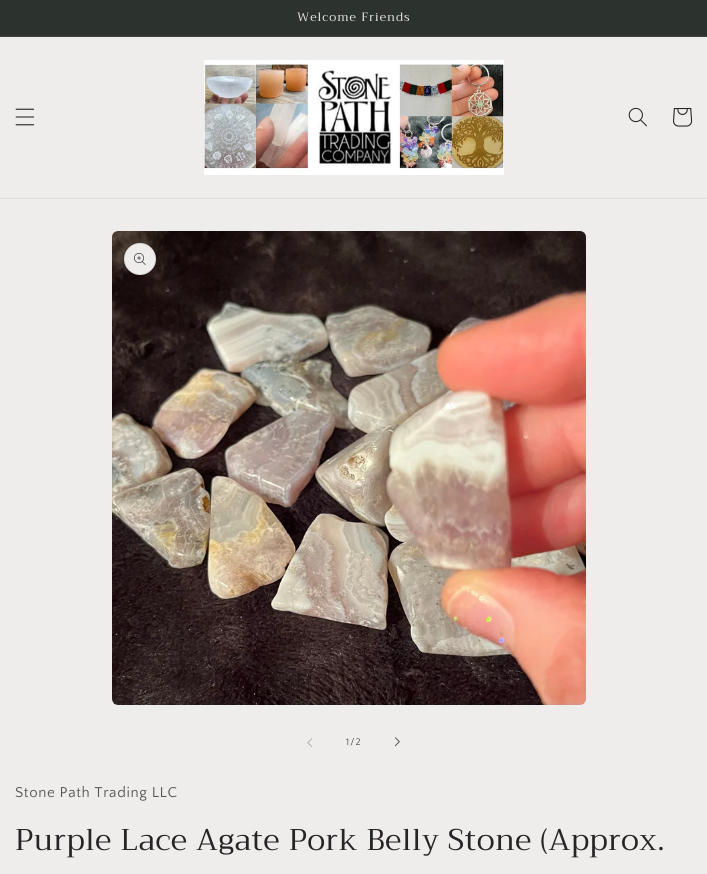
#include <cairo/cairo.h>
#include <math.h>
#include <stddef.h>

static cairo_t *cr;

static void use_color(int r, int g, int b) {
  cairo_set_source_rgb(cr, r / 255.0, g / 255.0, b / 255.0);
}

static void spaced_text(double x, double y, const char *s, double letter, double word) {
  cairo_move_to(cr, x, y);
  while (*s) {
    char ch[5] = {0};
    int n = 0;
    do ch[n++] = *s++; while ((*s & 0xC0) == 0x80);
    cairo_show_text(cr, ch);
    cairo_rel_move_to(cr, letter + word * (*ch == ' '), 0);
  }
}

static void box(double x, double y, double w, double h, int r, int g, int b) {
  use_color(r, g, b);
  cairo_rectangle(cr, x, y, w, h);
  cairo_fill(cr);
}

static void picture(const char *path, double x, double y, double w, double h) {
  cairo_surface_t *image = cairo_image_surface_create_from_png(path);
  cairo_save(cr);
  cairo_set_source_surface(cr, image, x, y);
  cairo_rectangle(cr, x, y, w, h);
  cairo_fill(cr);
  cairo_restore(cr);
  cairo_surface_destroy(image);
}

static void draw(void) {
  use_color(239, 236, 236);
  cairo_paint(cr);
  box(0, 0, 707, 36, 44, 51, 47);
  box(0, 36, 707, 1, 60, 66, 62);
  box(0, 198, 707, 1, 223, 220, 220);
  picture("img_01.png", 15, 108, 20, 18);
  picture("img_02.png", 204, 60, 300, 115);
  picture("img_03.png", 628, 107, 19, 20);
  picture("img_04.png", 673, 108, 20, 19);
  picture("img_05.png", 112, 231, 474, 474);
  use_color(239, 236, 236);
  cairo_arc(cr, 140, 259, 16, 0, 2 * M_PI);
  cairo_fill(cr);
  cairo_arc(cr, 140, 259, 15.5, 0, 2 * M_PI);
  cairo_set_source_rgba(cr, 0.145, 0.145, 0.145, 0.1);
  cairo_set_line_width(cr, 1);
  cairo_stroke(cr);
  picture("img_06.png", 134, 253, 12, 12);
  picture("img_07.png", 307, 738, 5, 9);
  picture("img_08.png", 394, 737, 6, 10);
  cairo_select_font_face(cr, "Trirong", CAIRO_FONT_SLANT_NORMAL, CAIRO_FONT_WEIGHT_NORMAL);
  cairo_set_font_size(cr, 12);
  use_color(239, 236, 236);
  spaced_text(297, 21, "Welcome Friends", 1, 0);
  cairo_select_font_face(cr, "Quattrocento Sans", CAIRO_FONT_SLANT_NORMAL, CAIRO_FONT_WEIGHT_NORMAL);
  cairo_set_font_size(cr, 10);
  use_color(88, 87, 87);
  spaced_text(346, 745, "1/2", 1, 0);
  cairo_set_font_size(cr, 15);
  spaced_text(15, 797, "Stone Path Trading LLC", 0.6, 0);
  cairo_select_font_face(cr, "Trirong", CAIRO_FONT_SLANT_NORMAL, CAIRO_FONT_WEIGHT_NORMAL);
  cairo_set_font_size(cr, 30);
  use_color(37, 37, 37);
  spaced_text(15, 850, "Purple Lace Agate Pork Belly Stone (Approx.", 0.6, 0);
}

int main(void) {
  cairo_surface_t *surface = cairo_image_surface_create(CAIRO_FORMAT_RGB24, 707, 874);
  cr = cairo_create(surface);
  cairo_font_options_t *options = cairo_font_options_create();
  cairo_font_options_set_hint_metrics(options, CAIRO_HINT_METRICS_OFF);
  cairo_font_options_set_hint_style(options, CAIRO_HINT_STYLE_NONE);
  cairo_set_font_options(cr, options);
  cairo_set_miter_limit(cr, 4);
  draw();
  cairo_surface_write_to_png(surface, "out.png");
  cairo_font_options_destroy(options);
  cairo_destroy(cr);
  cairo_surface_destroy(surface);
  return 0;
}
